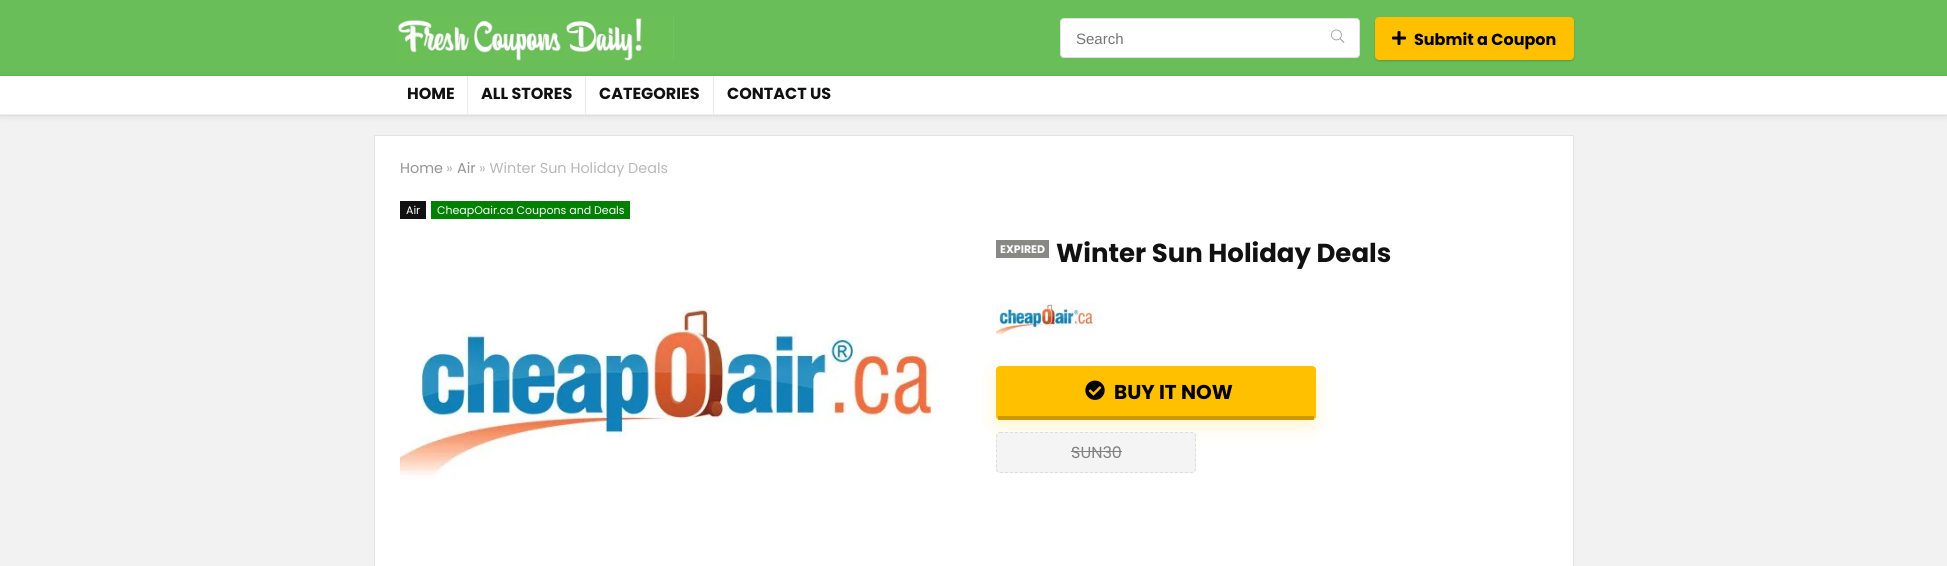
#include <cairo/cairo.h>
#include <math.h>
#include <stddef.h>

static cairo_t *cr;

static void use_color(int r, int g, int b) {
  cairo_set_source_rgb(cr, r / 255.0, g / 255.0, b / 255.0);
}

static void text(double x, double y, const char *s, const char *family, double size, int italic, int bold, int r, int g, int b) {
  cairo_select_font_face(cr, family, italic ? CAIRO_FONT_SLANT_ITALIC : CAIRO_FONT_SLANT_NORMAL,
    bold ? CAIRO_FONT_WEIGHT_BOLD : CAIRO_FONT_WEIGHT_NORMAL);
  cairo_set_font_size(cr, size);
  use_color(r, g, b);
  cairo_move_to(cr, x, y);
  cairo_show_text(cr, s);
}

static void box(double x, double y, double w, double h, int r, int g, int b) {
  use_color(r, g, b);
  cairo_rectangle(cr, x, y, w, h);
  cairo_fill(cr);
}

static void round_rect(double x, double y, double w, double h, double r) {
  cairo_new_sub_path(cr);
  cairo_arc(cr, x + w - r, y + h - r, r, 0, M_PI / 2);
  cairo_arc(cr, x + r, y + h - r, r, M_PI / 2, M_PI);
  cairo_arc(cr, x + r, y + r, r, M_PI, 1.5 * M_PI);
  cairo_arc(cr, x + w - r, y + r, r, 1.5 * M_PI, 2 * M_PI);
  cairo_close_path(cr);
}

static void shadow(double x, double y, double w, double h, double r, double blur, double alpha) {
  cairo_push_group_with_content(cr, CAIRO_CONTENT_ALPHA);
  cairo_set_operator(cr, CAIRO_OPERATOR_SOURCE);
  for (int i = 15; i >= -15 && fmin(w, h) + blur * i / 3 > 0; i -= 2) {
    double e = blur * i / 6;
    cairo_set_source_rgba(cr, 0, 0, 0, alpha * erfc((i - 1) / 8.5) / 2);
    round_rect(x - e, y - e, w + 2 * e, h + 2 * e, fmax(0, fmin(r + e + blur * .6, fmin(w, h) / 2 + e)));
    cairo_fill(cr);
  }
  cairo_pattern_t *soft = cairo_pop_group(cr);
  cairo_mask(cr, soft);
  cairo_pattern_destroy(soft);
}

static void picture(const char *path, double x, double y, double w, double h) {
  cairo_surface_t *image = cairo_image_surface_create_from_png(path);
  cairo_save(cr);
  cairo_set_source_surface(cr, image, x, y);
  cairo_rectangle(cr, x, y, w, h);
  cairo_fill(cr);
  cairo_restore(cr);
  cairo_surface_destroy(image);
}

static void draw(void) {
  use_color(242, 242, 242);
  cairo_paint(cr);
  box(0, 0, 1947, 76, 106, 190, 89);
  picture("img_01.png", 396, 15, 278, 46);
  use_color(255, 255, 255);
  round_rect(1060.5, 18.5, 299, 39, 3.5);
  cairo_fill_preserve(cr);
  use_color(225, 225, 225);
  cairo_set_line_width(cr, 1);
  cairo_stroke(cr);
  picture("img_02.png", 1331, 29, 14, 14);
  use_color(0, 0, 0);
  shadow(1375, 18, 199, 43, 4, 1, 0.2);
  use_color(255, 192, 0);
  round_rect(1375.5, 17.5, 198, 42, 3.5);
  cairo_fill_preserve(cr);
  cairo_stroke(cr);
  picture("img_03.png", 1392, 31, 14, 14);
  cairo_rectangle(cr, -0.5, 75.5, 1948, 40);
  cairo_set_source_rgba(cr, 0, 0, 0, 0.03);
  cairo_stroke(cr);
  use_color(0, 0, 0);
  shadow(0, 77, 1947, 39, 0, 4, 0.1);
  box(0, 76, 1947, 38, 255, 255, 255);
  box(0, 114, 1947, 1, 238, 238, 238);
  box(467, 76, 1, 38, 235, 235, 235);
  box(585, 76, 1, 38, 235, 235, 235);
  box(713, 76, 1, 38, 235, 235, 235);
  use_color(255, 255, 255);
  cairo_rectangle(cr, 374.5, 135.5, 1199, 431);
  cairo_fill_preserve(cr);
  use_color(227, 227, 227);
  cairo_stroke(cr);
  box(400, 201, 26, 18, 17, 17, 17);
  box(431, 201, 199, 18, 0, 128, 0);
  picture("img_04.png", 400, 309, 538, 171);
  box(996, 240, 53, 18, 136, 136, 133);
  picture("img_05.png", 996, 303, 100, 34);
  use_color(255, 192, 0);
  shadow(995, 372, 320, 54, 4, 9.5, 0.2);
  use_color(255, 192, 0);
  round_rect(996, 366, 320, 54, 4);
  cairo_fill(cr);
  cairo_set_source_rgba(cr, 0, 0, 0, 0.2);
  cairo_rectangle(cr, 998, 416, 316, 4);
  cairo_fill(cr);
  picture("img_06.png", 1085, 380, 20, 20);
  use_color(244, 244, 244);
  round_rect(996, 432, 200, 41, 4);
  cairo_fill(cr);
  cairo_new_path(cr);
  cairo_move_to(cr, 1000, 432.5);
  cairo_line_to(cr, 1192, 432.5);
  cairo_curve_to(cr, 1194, 432.5, 1195.5, 434, 1195.5, 436);
  cairo_line_to(cr, 1195.5, 469);
  cairo_curve_to(cr, 1195.5, 471, 1194, 472.5, 1192, 472.5);
  cairo_line_to(cr, 1000, 472.5);
  cairo_curve_to(cr, 998, 472.5, 996.5, 471, 996.5, 469);
  cairo_line_to(cr, 996.5, 436);
  cairo_curve_to(cr, 996.5, 434, 998, 432.5, 1000, 432.5);
  cairo_close_path(cr);
  use_color(221, 221, 221);
  cairo_set_dash(cr, (double[]){3, 2}, 2, 0);
  cairo_stroke(cr);
  box(1071, 451, 51, 1, 128, 128, 128);
  text(1076, 44, "Search", "Liberation Sans", 15, 0, 0, 117, 117, 117);
  text(1414, 45, "Submit a Coupon", "Poppins", 16, 0, 1, 0, 0, 0);
  text(407, 99, "HOME", "Poppins", 16, 0, 1, 17, 17, 17);
  text(481, 99, "ALL STORES", "Poppins", 16, 0, 1, 17, 17, 17);
  text(599, 99, "CATEGORIES", "Poppins", 16, 0, 1, 17, 17, 17);
  text(727, 99, "CONTACT US", "Poppins", 16, 0, 1, 17, 17, 17);
  text(400, 173, "Home", "Poppins", 14.4, 0, 0, 148, 148, 148);
  text(446, 173, "»", "Poppins", 14.4, 0, 0, 184, 184, 184);
  text(457, 173, "Air", "Poppins", 14.4, 0, 0, 148, 148, 148);
  text(479, 173, "» Winter Sun Holiday Deals", "Poppins", 14.4, 0, 0, 184, 184, 184);
  text(406, 214, "Air", "Poppins", 11, 0, 0, 255, 255, 255);
  text(437, 214, "CheapOair.ca Coupons and Deals", "Poppins", 11, 0, 0, 255, 255, 255);
  text(1000, 253, "EXPIRED", "Poppins", 11, 0, 1, 255, 255, 255);
  text(1056, 262, "Winter Sun Holiday Deals", "Poppins", 26, 0, 1, 17, 17, 17);
  text(1114, 399, "BUY IT NOW", "Poppins", 20, 0, 1, 0, 0, 0);
  text(1071, 458, "SUN30", "Poppins", 16, 0, 0, 128, 128, 128);
}

int main(void) {
  cairo_surface_t *surface = cairo_image_surface_create(CAIRO_FORMAT_RGB24, 1947, 566);
  cr = cairo_create(surface);
  cairo_font_options_t *options = cairo_font_options_create();
  cairo_font_options_set_hint_metrics(options, CAIRO_HINT_METRICS_OFF);
  cairo_font_options_set_hint_style(options, CAIRO_HINT_STYLE_NONE);
  cairo_set_font_options(cr, options);
  cairo_set_miter_limit(cr, 4);
  draw();
  cairo_surface_write_to_png(surface, "out.png");
  cairo_font_options_destroy(options);
  cairo_destroy(cr);
  cairo_surface_destroy(surface);
  return 0;
}
